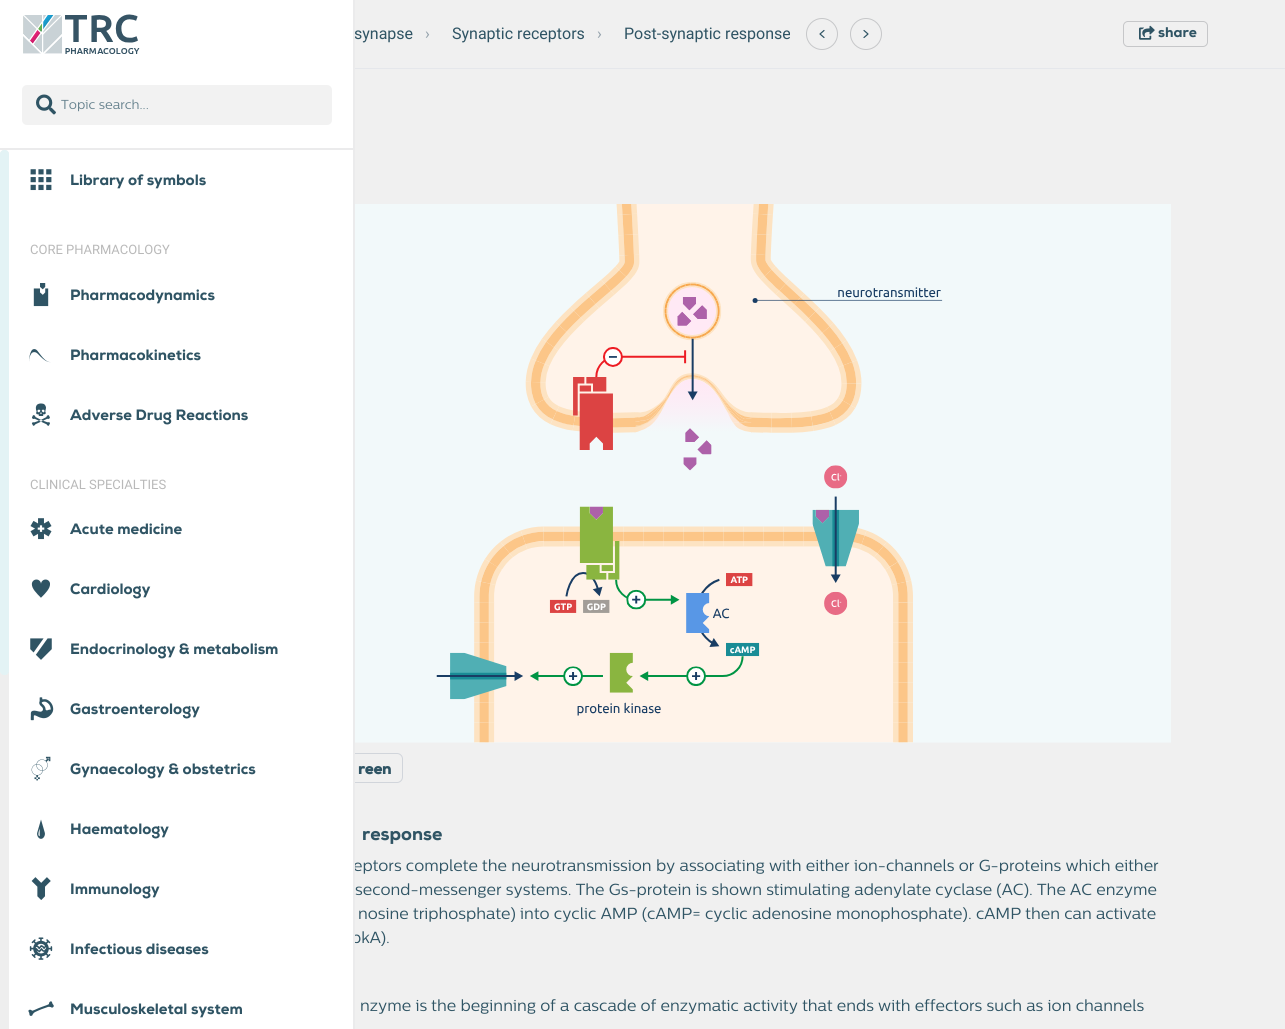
#include <cairo/cairo.h>
#include <math.h>
#include <stddef.h>

static cairo_t *cr;

static void use_color(int r, int g, int b) {
  cairo_set_source_rgb(cr, r / 255.0, g / 255.0, b / 255.0);
}

static void text(double x, double y, const char *s, const char *family, double size, int italic, int bold, int r, int g, int b) {
  cairo_select_font_face(cr, family, italic ? CAIRO_FONT_SLANT_ITALIC : CAIRO_FONT_SLANT_NORMAL,
    bold ? CAIRO_FONT_WEIGHT_BOLD : CAIRO_FONT_WEIGHT_NORMAL);
  cairo_set_font_size(cr, size);
  use_color(r, g, b);
  cairo_move_to(cr, x, y);
  cairo_show_text(cr, s);
}

static void box(double x, double y, double w, double h, int r, int g, int b) {
  use_color(r, g, b);
  cairo_rectangle(cr, x, y, w, h);
  cairo_fill(cr);
}

static void round_rect(double x, double y, double w, double h, double r) {
  cairo_new_sub_path(cr);
  cairo_arc(cr, x + w - r, y + h - r, r, 0, M_PI / 2);
  cairo_arc(cr, x + r, y + h - r, r, M_PI / 2, M_PI);
  cairo_arc(cr, x + r, y + r, r, M_PI, 1.5 * M_PI);
  cairo_arc(cr, x + w - r, y + r, r, 1.5 * M_PI, 2 * M_PI);
  cairo_close_path(cr);
}

static void picture(const char *path, double x, double y, double w, double h) {
  cairo_surface_t *image = cairo_image_surface_create_from_png(path);
  cairo_save(cr);
  cairo_set_source_surface(cr, image, x, y);
  cairo_rectangle(cr, x, y, w, h);
  cairo_fill(cr);
  cairo_restore(cr);
  cairo_surface_destroy(image);
}

static void draw(void) {
  use_color(240, 240, 240);
  cairo_paint(cr);
  box(355, 68, 930, 1, 229, 231, 235);
  cairo_arc(cr, 822, 34, 15.5, 0, 2 * M_PI);
  use_color(198, 199, 201);
  cairo_set_line_width(cr, 1);
  cairo_stroke(cr);
  cairo_new_path(cr);
  cairo_move_to(cr, 824, 37.5);
  cairo_line_to(cr, 820, 34);
  cairo_line_to(cr, 824, 30.5);
  use_color(47, 84, 100);
  cairo_set_line_width(cr, 1.2);
  cairo_set_line_cap(cr, CAIRO_LINE_CAP_ROUND);
  cairo_set_line_join(cr, CAIRO_LINE_JOIN_ROUND);
  cairo_stroke(cr);
  cairo_arc(cr, 866, 34, 15.5, 0, 2 * M_PI);
  use_color(198, 199, 201);
  cairo_set_line_width(cr, 1);
  cairo_set_line_cap(cr, CAIRO_LINE_CAP_BUTT);
  cairo_set_line_join(cr, CAIRO_LINE_JOIN_MITER);
  cairo_stroke(cr);
  cairo_new_path(cr);
  cairo_move_to(cr, 864, 37.5);
  cairo_line_to(cr, 868, 34);
  cairo_line_to(cr, 864, 30.5);
  use_color(47, 84, 100);
  cairo_set_line_width(cr, 1.2);
  cairo_set_line_cap(cr, CAIRO_LINE_CAP_ROUND);
  cairo_set_line_join(cr, CAIRO_LINE_JOIN_ROUND);
  cairo_stroke(cr);
  round_rect(1123.5, 21.5, 84, 25, 4.5);
  use_color(198, 199, 201);
  cairo_set_line_width(cr, 1);
  cairo_set_line_cap(cr, CAIRO_LINE_CAP_BUTT);
  cairo_set_line_join(cr, CAIRO_LINE_JOIN_MITER);
  cairo_stroke(cr);
  picture("img_16.png", 1139, 25, 16, 15);
  picture("img_17.png", 355, 204, 816, 539);
  round_rect(294.5, 753.5, 108, 29, 5.5);
  use_color(209, 213, 219);
  cairo_stroke(cr);
  text(354, 39, "synapse", "Roboto", 16, 0, 0, 47, 84, 100);
  text(425, 39, "›", "Roboto", 16, 0, 0, 148, 161, 171);
  text(452, 39, "Synaptic receptors", "Roboto", 16, 0, 0, 47, 84, 100);
  text(597, 39, "›", "Roboto", 16, 0, 0, 148, 161, 171);
  text(624, 39, "Post-synaptic response", "Roboto", 16, 0, 0, 47, 84, 100);
  text(1158, 37, "share", "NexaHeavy", 14, 0, 0, 47, 84, 100);
  text(358, 774, "reen", "NexaHeavy", 15, 0, 1, 47, 84, 100);
  text(362, 840, "response", "NexaHeavy", 18, 0, 0, 47, 84, 100);
  text(353, 871, "eptors complete the neurotransmission by associating with either ion-channels or G-proteins which either", "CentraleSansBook", 16, 0, 0, 47, 84, 100);
  text(355, 895, "second-messenger systems. The Gs-protein is shown stimulating adenylate cyclase (AC). The AC enzyme", "CentraleSansBook", 16, 0, 0, 47, 84, 100);
  text(358, 919, "nosine triphosphate) into cyclic AMP (cAMP= cyclic adenosine monophosphate). cAMP then can activate", "CentraleSansBook", 16, 0, 0, 47, 84, 100);
  text(351, 943, "pkA).", "CentraleSansBook", 16, 0, 0, 47, 84, 100);
  box(0, 0, 353, 1029, 255, 255, 255);
  use_color(238, 238, 238);
  round_rect(0, 150, 9, 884, 4.5);
  cairo_fill(cr);
  use_color(227, 243, 245);
  round_rect(0, 150, 9, 525, 4);
  cairo_fill(cr);
  picture("img_15.png", 28, 1001, 26, 15);
  text(70, 1014, "Musculoskeletal system", "NexaHeavy", 15, 0, 0, 47, 84, 100);
  picture("img_14.png", 29, 937, 24, 23);
  text(70, 954, "Infectious diseases", "NexaHeavy", 15, 0, 0, 47, 84, 100);
  picture("img_13.png", 31, 877, 20, 23);
  text(70, 894, "Immunology", "NexaHeavy", 15, 0, 0, 47, 84, 100);
  picture("img_12.png", 37, 819, 8, 20);
  text(70, 834, "Haematology", "NexaHeavy", 15, 0, 0, 47, 84, 100);
  picture("img_11.png", 31, 756, 20, 25);
  text(70, 774, "Gynaecology & obstetrics", "NexaHeavy", 15, 0, 0, 47, 84, 100);
  picture("img_10.png", 30, 697, 24, 24);
  text(70, 714, "Gastroenterology", "NexaHeavy", 15, 0, 0, 47, 84, 100);
  picture("img_09.png", 30, 638, 22, 22);
  text(70, 654, "Endocrinology & metabolism", "NexaHeavy", 15, 0, 0, 47, 84, 100);
  picture("img_08.png", 31, 579, 19, 19);
  text(70, 594, "Cardiology", "NexaHeavy", 15, 0, 0, 47, 84, 100);
  picture("img_07.png", 30, 518, 22, 22);
  text(70, 534, "Acute medicine", "NexaHeavy", 15, 0, 0, 47, 84, 100);
  picture("img_06.png", 31, 403, 19, 23);
  text(70, 420, "Adverse Drug Reactions", "NexaHeavy", 15, 0, 0, 47, 84, 100);
  picture("img_05.png", 29, 349, 22, 14);
  text(70, 360, "Pharmacokinetics", "NexaHeavy", 15, 0, 0, 47, 84, 100);
  picture("img_04.png", 33, 283, 16, 24);
  text(70, 300, "Pharmacodynamics", "NexaHeavy", 15, 0, 0, 47, 84, 100);
  picture("img_03.png", 30, 169, 22, 22);
  text(70, 185, "Library of symbols", "NexaHeavy", 15, 0, 0, 47, 84, 100);
  text(30, 489, "CLINICAL SPECIALTIES", "Roboto", 13, 0, 0, 185, 185, 185);
  text(30, 254, "CORE PHARMACOLOGY", "Roboto", 13, 0, 0, 185, 185, 185);
  use_color(242, 242, 242);
  round_rect(22, 85, 310, 40, 5);
  cairo_fill(cr);
  text(61, 109, "Topic search...", "CentraleSansBook", 13, 0, 0, 101, 129, 141);
  picture("img_02.png", 36, 94, 20, 21);
  picture("img_01.png", 23, 14, 117, 40);
  box(0, 148, 353, 2, 235, 235, 236);
  box(353, 0, 2, 1029, 235, 235, 236);
  text(360, 1011, "nzyme is the beginning of a cascade of enzymatic activity that ends with effectors such as ion channels", "CentraleSansBook", 16, 0, 0, 47, 84, 100);
}

int main(void) {
  cairo_surface_t *surface = cairo_image_surface_create(CAIRO_FORMAT_RGB24, 1285, 1029);
  cr = cairo_create(surface);
  cairo_font_options_t *options = cairo_font_options_create();
  cairo_font_options_set_hint_metrics(options, CAIRO_HINT_METRICS_OFF);
  cairo_font_options_set_hint_style(options, CAIRO_HINT_STYLE_NONE);
  cairo_set_font_options(cr, options);
  cairo_set_miter_limit(cr, 4);
  draw();
  cairo_surface_write_to_png(surface, "out.png");
  cairo_font_options_destroy(options);
  cairo_destroy(cr);
  cairo_surface_destroy(surface);
  return 0;
}
